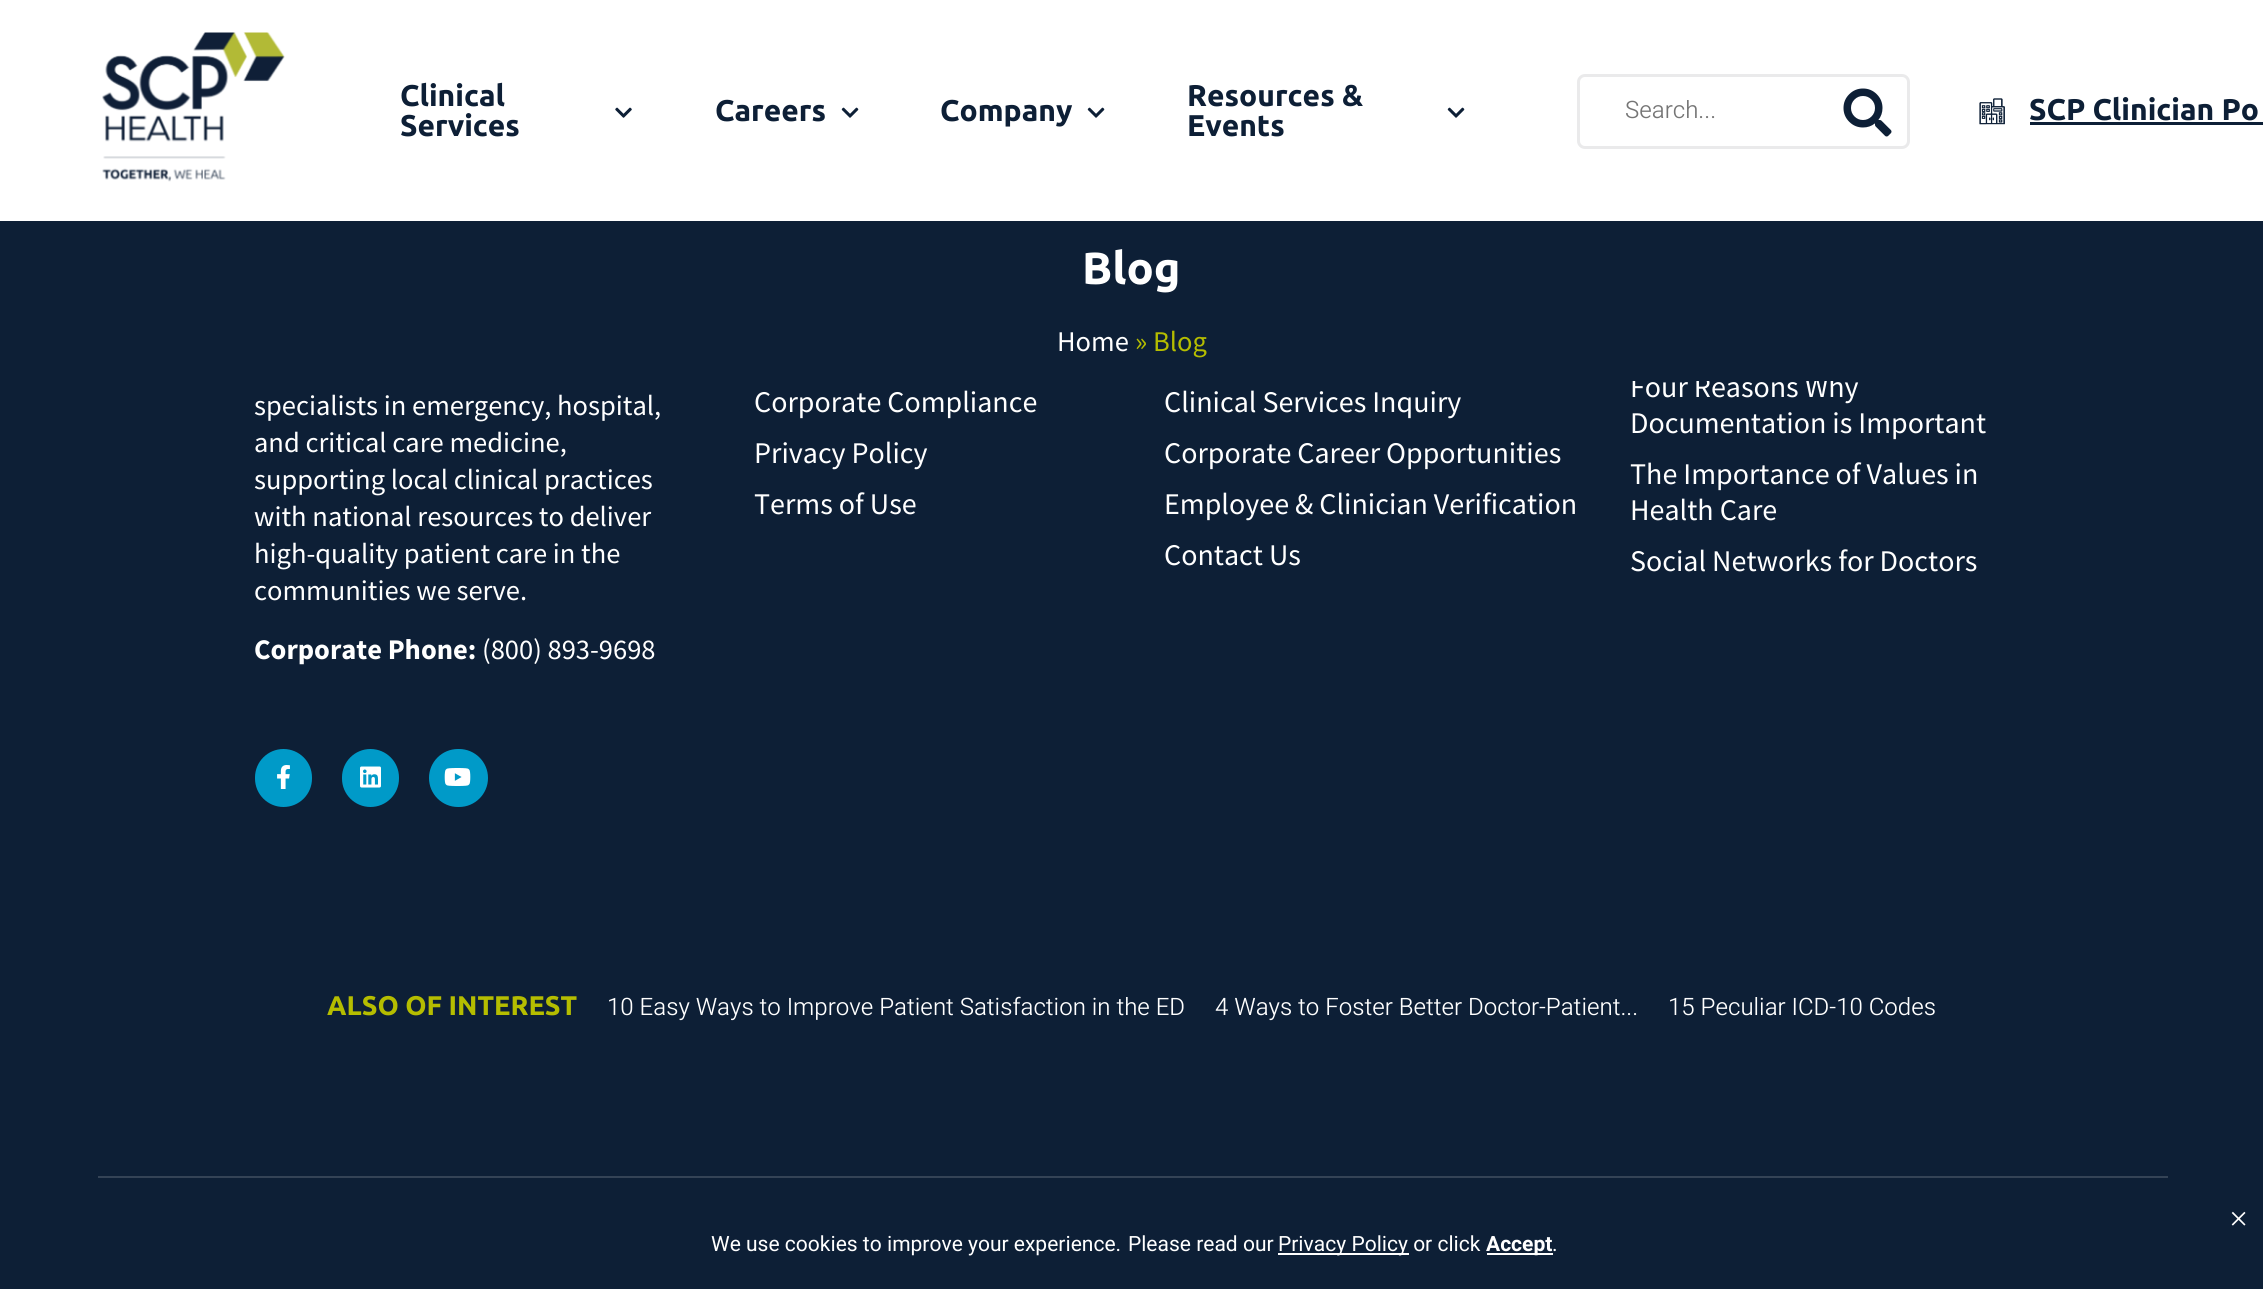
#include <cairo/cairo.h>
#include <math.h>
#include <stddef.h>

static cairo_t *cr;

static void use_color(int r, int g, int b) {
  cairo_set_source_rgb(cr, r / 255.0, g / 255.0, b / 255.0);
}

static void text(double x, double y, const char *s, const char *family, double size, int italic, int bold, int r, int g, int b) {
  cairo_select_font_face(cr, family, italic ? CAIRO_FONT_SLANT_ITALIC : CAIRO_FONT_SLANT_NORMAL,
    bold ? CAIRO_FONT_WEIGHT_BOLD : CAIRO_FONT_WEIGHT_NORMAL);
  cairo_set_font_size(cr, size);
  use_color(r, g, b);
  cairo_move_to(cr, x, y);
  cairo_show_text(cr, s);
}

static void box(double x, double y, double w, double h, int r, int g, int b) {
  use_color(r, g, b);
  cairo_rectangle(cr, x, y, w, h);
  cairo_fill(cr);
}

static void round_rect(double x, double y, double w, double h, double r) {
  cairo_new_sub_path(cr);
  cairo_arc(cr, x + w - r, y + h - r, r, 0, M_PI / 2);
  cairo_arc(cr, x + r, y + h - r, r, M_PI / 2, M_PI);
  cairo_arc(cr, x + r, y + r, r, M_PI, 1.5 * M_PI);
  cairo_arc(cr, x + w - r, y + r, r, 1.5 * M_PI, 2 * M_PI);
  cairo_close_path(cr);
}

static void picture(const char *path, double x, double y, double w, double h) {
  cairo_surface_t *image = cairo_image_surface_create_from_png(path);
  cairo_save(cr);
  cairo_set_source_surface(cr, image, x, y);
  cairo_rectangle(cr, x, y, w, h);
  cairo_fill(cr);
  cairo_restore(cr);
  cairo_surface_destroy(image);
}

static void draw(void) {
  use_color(13, 31, 54);
  cairo_paint(cr);
  box(0, 0, 2263, 221, 255, 255, 255);
  picture("img_01.png", 102, 32, 183, 150);
  picture("img_02.png", 615, 107, 17, 11);
  picture("img_03.png", 841, 107, 18, 11);
  picture("img_03.png", 1087, 107, 18, 11);
  picture("img_03.png", 1447, 107, 18, 11);
  round_rect(1578.5, 75.5, 330, 72, 6.5);
  use_color(234, 234, 235);
  cairo_set_line_width(cr, 3);
  cairo_stroke(cr);
  picture("img_04.png", 1843, 88, 49, 49);
  picture("img_05.png", 1979, 98, 26, 27);
  box(2030, 122, 233, 3, 13, 31, 54);
  use_color(0, 154, 200);
  round_rect(255, 749, 57, 58, 28.5);
  cairo_fill(cr);
  picture("img_06.png", 277, 765, 13, 24);
  round_rect(342, 749, 57, 58, 28.5);
  cairo_fill(cr);
  picture("img_07.png", 360, 766, 21, 22);
  round_rect(429, 749, 59, 58, 29);
  cairo_fill(cr);
  picture("img_08.png", 444, 768, 27, 18);
  box(98, 1176, 2070, 2, 52, 67, 86);
  box(1278, 1253, 131, 2, 255, 255, 255);
  box(1487, 1253, 66, 2, 255, 255, 255);
  text(400, 106, "Clinical", "Ubuntu", 30, 0, 1, 13, 31, 54);
  text(400, 136, "Services", "Ubuntu", 30, 0, 1, 13, 31, 54);
  text(715, 121, "Careers", "Ubuntu", 30, 0, 1, 13, 31, 54);
  text(940, 121, "Company", "Ubuntu", 30, 0, 1, 13, 31, 54);
  text(1187, 106, "Resources &", "Ubuntu", 30, 0, 1, 13, 31, 54);
  text(1187, 136, "Events", "Ubuntu", 30, 0, 1, 13, 31, 54);
  text(1625, 118, "Search...", "Heebo Light", 24, 0, 0, 117, 117, 117);
  text(2029, 120, "SCP Clinician Po", "Ubuntu", 30, 0, 1, 13, 31, 54);
  text(1082, 284, "Blog", "Ubuntu", 45, 0, 1, 255, 255, 255);
  text(1057, 351, "Home", "Source Sans Pro", 28.5, 0, 0, 255, 255, 255);
  text(1135, 351, "» Blog", "Source Sans Pro", 28.5, 0, 0, 181, 189, 0);
  text(254, 415, "specialists in emergency, hospital,", "Source Sans Pro", 28.5, 0, 0, 255, 255, 255);
  text(254, 452, "and critical care medicine,", "Source Sans Pro", 28.5, 0, 0, 255, 255, 255);
  text(254, 489, "supporting local clinical practices", "Source Sans Pro", 28.5, 0, 0, 255, 255, 255);
  text(254, 526, "with national resources to deliver", "Source Sans Pro", 28.5, 0, 0, 255, 255, 255);
  text(254, 563, "high-quality patient care in the", "Source Sans Pro", 28.5, 0, 0, 255, 255, 255);
  text(254, 600, "communities we serve.", "Source Sans Pro", 28.5, 0, 0, 255, 255, 255);
  text(254, 659, "Corporate Phone:", "Source Sans Pro", 28.5, 0, 1, 255, 255, 255);
  text(482, 659, "(800) 893-9698", "Source Sans Pro", 28.5, 0, 0, 255, 255, 255);
  text(754, 412, "Corporate Compliance", "Source Sans Pro", 30, 0, 0, 255, 255, 255);
  text(754, 463, "Privacy Policy", "Source Sans Pro", 30, 0, 0, 255, 255, 255);
  text(754, 514, "Terms of Use", "Source Sans Pro", 30, 0, 0, 255, 255, 255);
  text(1164, 412, "Clinical Services Inquiry", "Source Sans Pro", 30, 0, 0, 255, 255, 255);
  text(1164, 463, "Corporate Career Opportunities", "Source Sans Pro", 30, 0, 0, 255, 255, 255);
  text(1164, 514, "Employee & Clinician Verification", "Source Sans Pro", 30, 0, 0, 255, 255, 255);
  text(1164, 565, "Contact Us", "Source Sans Pro", 30, 0, 0, 255, 255, 255);
  text(1630, 397, "Four Reasons Why", "Source Sans Pro", 30, 0, 0, 255, 255, 255);
  box(1632, 375, 202, 6, 13, 31, 54);
  text(1630, 433, "Documentation is Important", "Source Sans Pro", 30, 0, 0, 255, 255, 255);
  text(1630, 484, "The Importance of Values in", "Source Sans Pro", 30, 0, 0, 255, 255, 255);
  text(1630, 520, "Health Care", "Source Sans Pro", 30, 0, 0, 255, 255, 255);
  text(1630, 571, "Social Networks for Doctors", "Source Sans Pro", 30, 0, 0, 255, 255, 255);
  text(327, 1015, "ALSO OF INTEREST", "Ubuntu", 27, 0, 1, 181, 189, 0);
  text(607, 1015, "10 Easy Ways to Improve Patient Satisfaction in the ED", "Heebo Light", 24, 0, 0, 255, 255, 255);
  text(1215, 1015, "4 Ways to Foster Better Doctor-Patient...", "Heebo Light", 24, 0, 0, 255, 255, 255);
  text(1668, 1015, "15 Peculiar ICD-10 Codes", "Heebo Light", 24, 0, 0, 255, 255, 255);
  text(711, 1251, "We use cookies to improve your experience.", "Heebo", 21, 0, 0, 255, 255, 255);
  text(2229, 1230, "×", "Liberation Serif", 34, 0, 0, 255, 255, 255);
  text(1128, 1251, "Please read our", "Heebo", 21, 0, 0, 255, 255, 255);
  text(1278, 1251, "Privacy Policy or click", "Heebo", 21, 0, 0, 255, 255, 255);
  text(1486, 1251, "Accept", "Heebo", 21, 0, 1, 255, 255, 255);
  text(1552, 1251, ".", "Heebo", 21, 0, 0, 255, 255, 255);
}

int main(void) {
  cairo_surface_t *surface = cairo_image_surface_create(CAIRO_FORMAT_RGB24, 2263, 1289);
  cr = cairo_create(surface);
  cairo_font_options_t *options = cairo_font_options_create();
  cairo_font_options_set_hint_metrics(options, CAIRO_HINT_METRICS_OFF);
  cairo_font_options_set_hint_style(options, CAIRO_HINT_STYLE_NONE);
  cairo_set_font_options(cr, options);
  cairo_set_miter_limit(cr, 4);
  draw();
  cairo_surface_write_to_png(surface, "out.png");
  cairo_font_options_destroy(options);
  cairo_destroy(cr);
  cairo_surface_destroy(surface);
  return 0;
}
